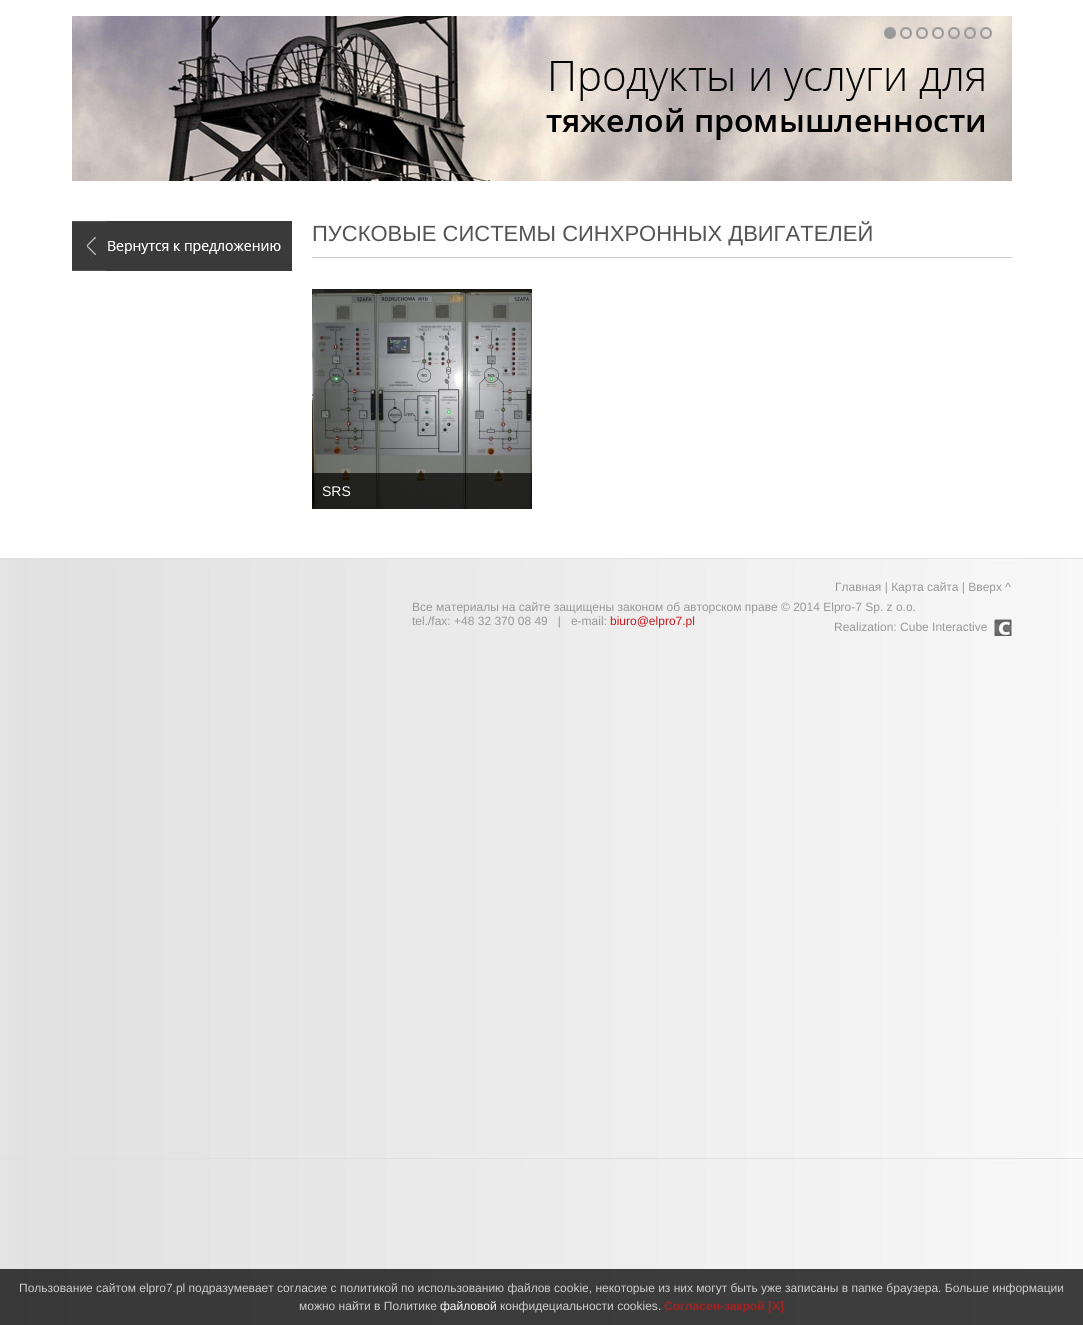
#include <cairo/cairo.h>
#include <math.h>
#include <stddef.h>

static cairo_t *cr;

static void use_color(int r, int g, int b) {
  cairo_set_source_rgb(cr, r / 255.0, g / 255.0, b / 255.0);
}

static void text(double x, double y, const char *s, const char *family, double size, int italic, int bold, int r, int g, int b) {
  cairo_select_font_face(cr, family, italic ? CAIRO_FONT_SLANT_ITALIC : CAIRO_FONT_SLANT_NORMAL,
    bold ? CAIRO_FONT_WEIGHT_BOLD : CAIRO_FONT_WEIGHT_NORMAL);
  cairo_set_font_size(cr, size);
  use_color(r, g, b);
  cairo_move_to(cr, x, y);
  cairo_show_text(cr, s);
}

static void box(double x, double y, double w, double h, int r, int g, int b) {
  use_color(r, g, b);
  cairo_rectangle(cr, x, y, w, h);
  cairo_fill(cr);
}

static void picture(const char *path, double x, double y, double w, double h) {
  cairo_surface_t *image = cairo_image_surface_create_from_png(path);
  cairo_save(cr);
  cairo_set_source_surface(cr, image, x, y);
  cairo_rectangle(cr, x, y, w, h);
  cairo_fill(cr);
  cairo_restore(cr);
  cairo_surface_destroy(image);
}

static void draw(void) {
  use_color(255, 255, 255);
  cairo_paint(cr);
  picture("img_01.png", 72, 16, 940, 165);
  picture("img_02.png", 884, 27, 12, 12);
  picture("img_03.png", 900, 27, 12, 12);
  picture("img_04.png", 916, 27, 12, 12);
  picture("img_05.png", 932, 27, 12, 12);
  picture("img_06.png", 948, 27, 12, 12);
  picture("img_07.png", 964, 27, 12, 12);
  picture("img_08.png", 980, 27, 12, 12);
  picture("img_09.png", 72, 221, 220, 50);
  box(312, 257, 700, 1, 206, 206, 206);
  picture("img_10.png", 312, 289, 220, 220);
  cairo_set_source_rgba(cr, 0, 0, 0, 0.7);
  cairo_rectangle(cr, 312, 473, 220, 36);
  cairo_fill(cr);
  picture("img_11.png", 0, 558, 1083, 767);
  picture("img_12.png", 994, 619, 18, 17);
  cairo_set_source_rgba(cr, 0, 0, 0, 0.75);
  cairo_rectangle(cr, 0, 1269, 1083, 56);
  cairo_fill(cr);
  text(312, 241, "ПУСКОВЫЕ СИСТЕМЫ СИНХРОННЫХ ДВИГАТЕЛЕЙ", "Liberation Sans", 22, 0, 0, 83, 83, 83);
  text(322, 496, "SRS", "Liberation Sans", 14, 0, 0, 255, 255, 255);
  text(835, 591, "Главная | Карта сайта | Вверх ^", "Liberation Sans", 12, 0, 0, 152, 152, 152);
  text(412, 611, "Все материалы на сайте защищены законом об авторском праве © 2014 Elpro-7 Sp. z o.o.", "Liberation Sans", 12, 0, 0, 152, 152, 152);
  text(412, 625, "tel./fax: +48 32 370 08 49   |   e-mail:", "Liberation Sans", 12, 0, 0, 152, 152, 152);
  text(610, 625, "biuro@elpro7.pl", "Liberation Sans", 12, 0, 0, 198, 25, 28);
  text(834, 631, "Realization: Cube Interactive", "Liberation Sans", 12, 0, 0, 152, 152, 152);
  text(19, 1292, "Пользование сайтом elpro7.pl подразумевает согласие с политикой по использованию файлов сookie, некоторые из них могут быть уже записаны в папке браузера. Больше информации", "Liberation Sans", 12, 0, 0, 206, 206, 206);
  text(299, 1310, "можно найти в Политике", "Liberation Sans", 12, 0, 0, 206, 206, 206);
  text(440, 1310, "файловой", "Liberation Sans", 12, 0, 0, 255, 255, 255);
  text(500, 1310, "конфидециальности cookies", "Liberation Sans", 12, 0, 0, 206, 206, 206);
  text(658, 1310, ".", "Liberation Sans", 12, 0, 0, 255, 255, 255);
  text(664, 1310, "Согласен-закрой [X]", "Liberation Sans", 12, 0, 1, 164, 34, 36);
}

int main(void) {
  cairo_surface_t *surface = cairo_image_surface_create(CAIRO_FORMAT_RGB24, 1083, 1325);
  cr = cairo_create(surface);
  cairo_font_options_t *options = cairo_font_options_create();
  cairo_font_options_set_hint_metrics(options, CAIRO_HINT_METRICS_OFF);
  cairo_font_options_set_hint_style(options, CAIRO_HINT_STYLE_NONE);
  cairo_set_font_options(cr, options);
  cairo_set_miter_limit(cr, 4);
  draw();
  cairo_surface_write_to_png(surface, "out.png");
  cairo_font_options_destroy(options);
  cairo_destroy(cr);
  cairo_surface_destroy(surface);
  return 0;
}
